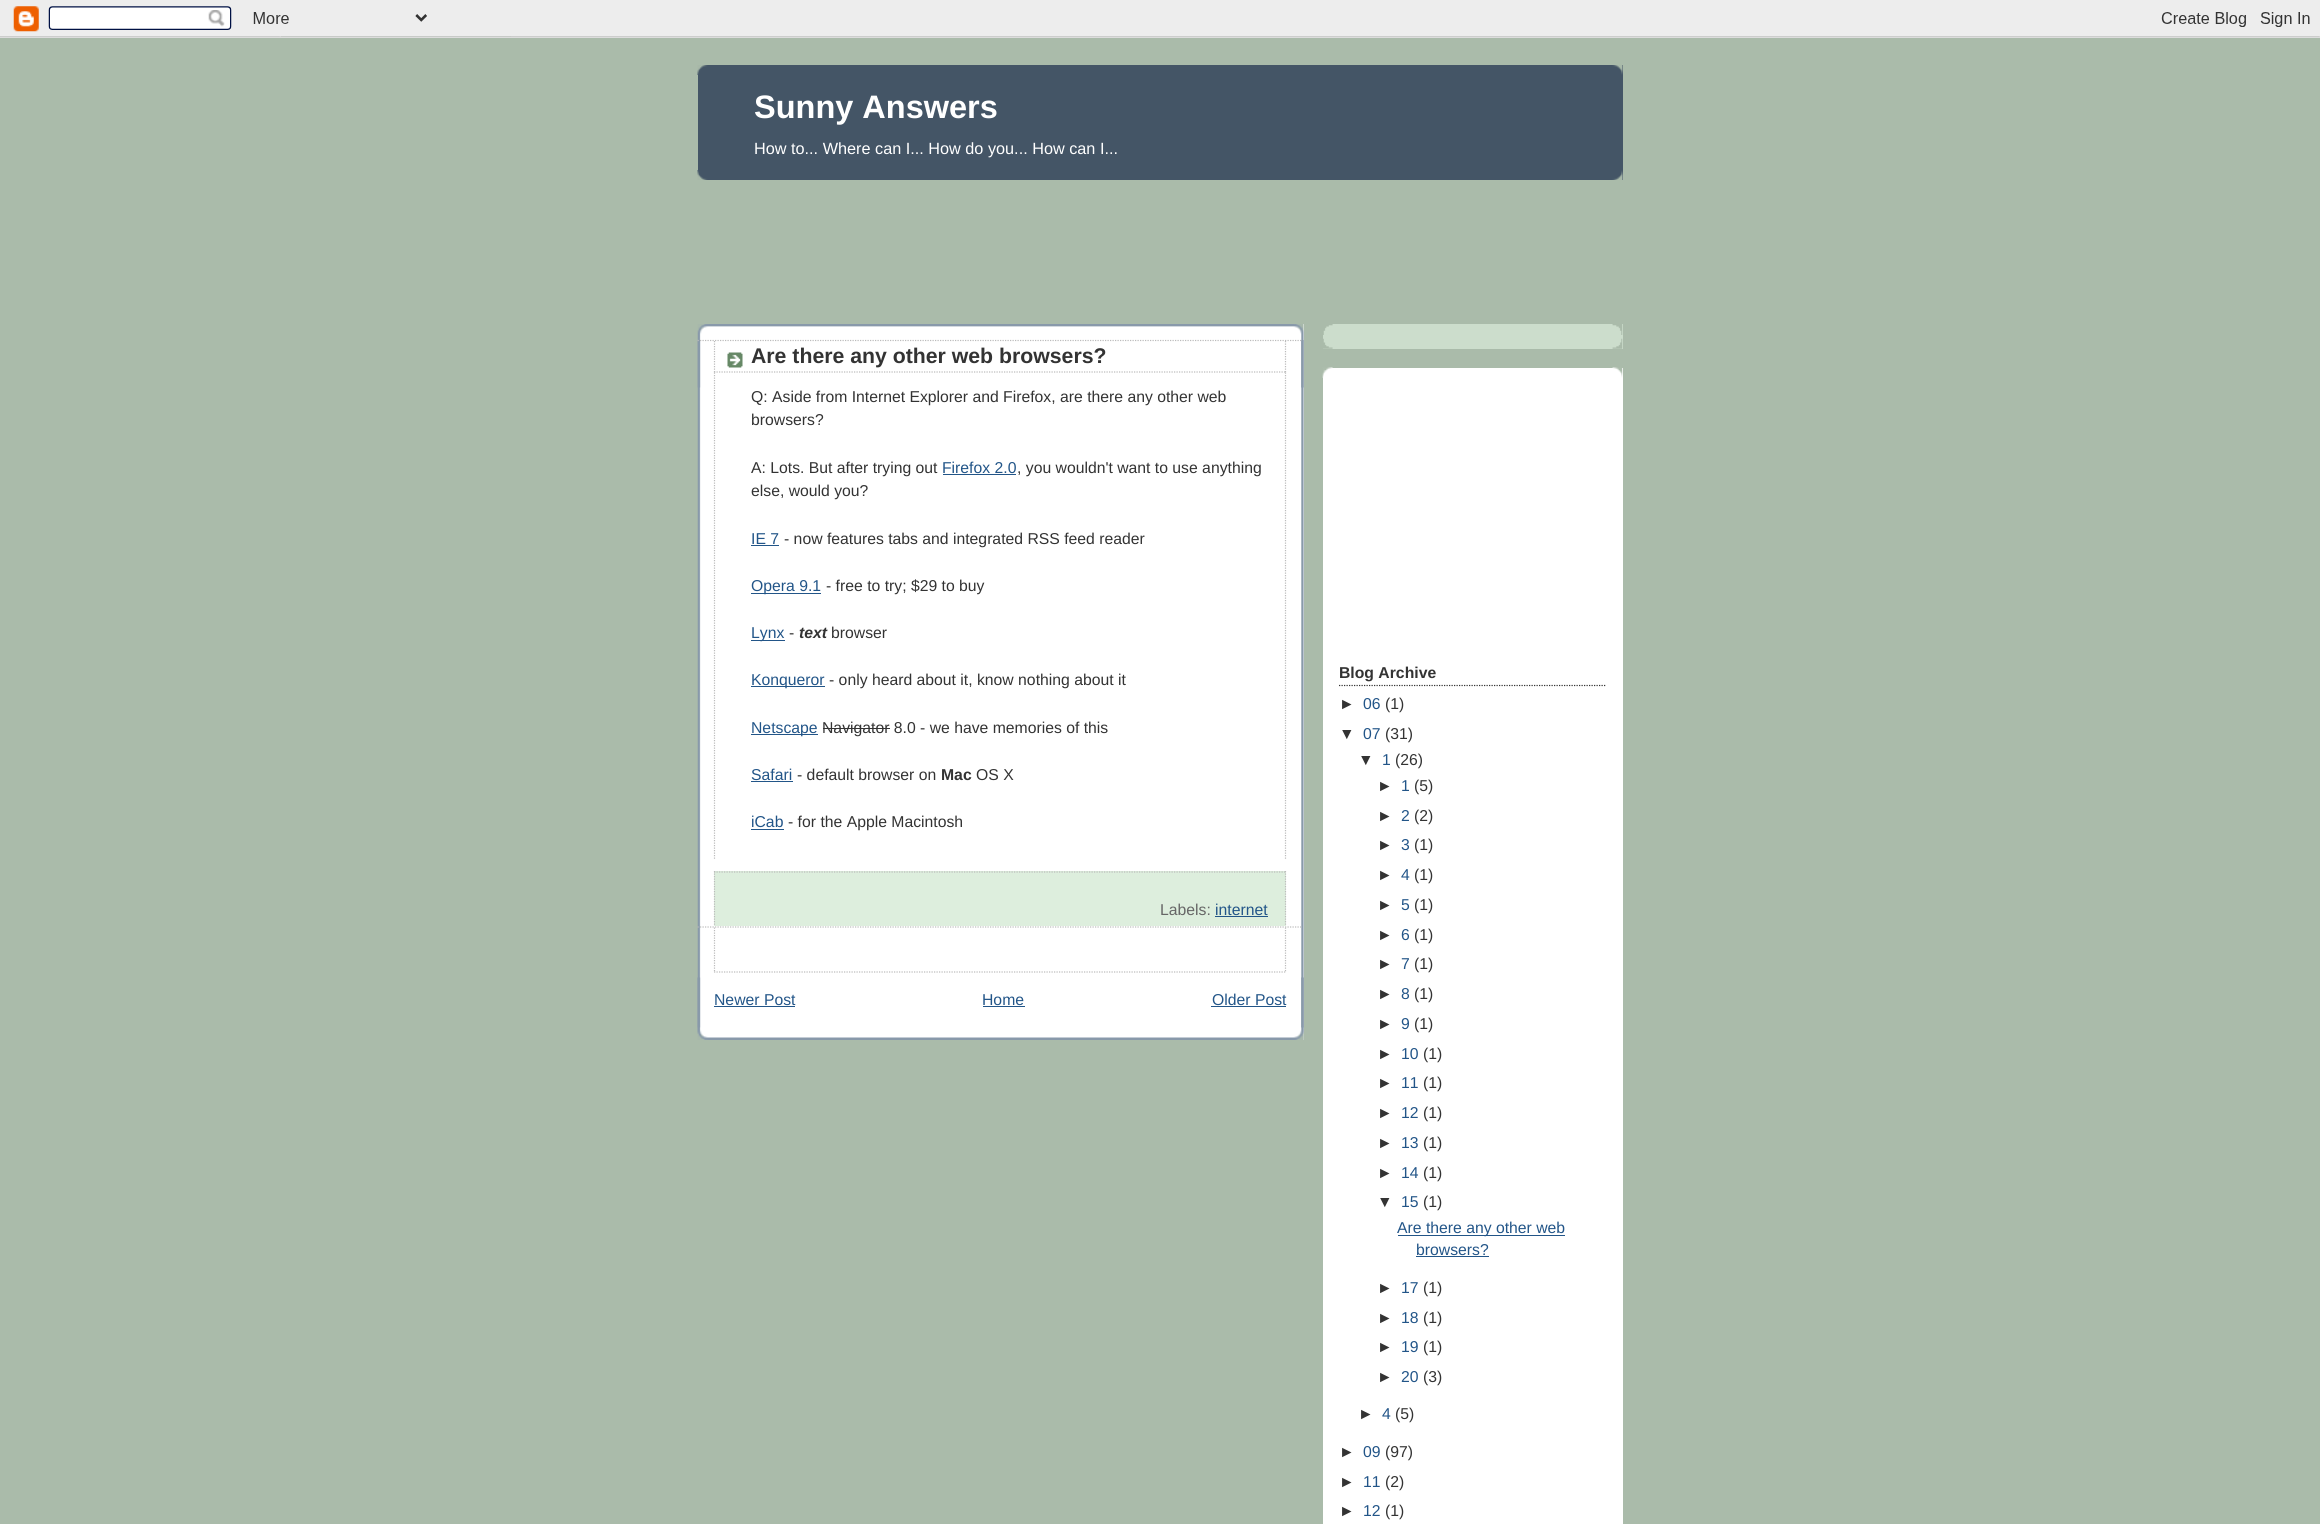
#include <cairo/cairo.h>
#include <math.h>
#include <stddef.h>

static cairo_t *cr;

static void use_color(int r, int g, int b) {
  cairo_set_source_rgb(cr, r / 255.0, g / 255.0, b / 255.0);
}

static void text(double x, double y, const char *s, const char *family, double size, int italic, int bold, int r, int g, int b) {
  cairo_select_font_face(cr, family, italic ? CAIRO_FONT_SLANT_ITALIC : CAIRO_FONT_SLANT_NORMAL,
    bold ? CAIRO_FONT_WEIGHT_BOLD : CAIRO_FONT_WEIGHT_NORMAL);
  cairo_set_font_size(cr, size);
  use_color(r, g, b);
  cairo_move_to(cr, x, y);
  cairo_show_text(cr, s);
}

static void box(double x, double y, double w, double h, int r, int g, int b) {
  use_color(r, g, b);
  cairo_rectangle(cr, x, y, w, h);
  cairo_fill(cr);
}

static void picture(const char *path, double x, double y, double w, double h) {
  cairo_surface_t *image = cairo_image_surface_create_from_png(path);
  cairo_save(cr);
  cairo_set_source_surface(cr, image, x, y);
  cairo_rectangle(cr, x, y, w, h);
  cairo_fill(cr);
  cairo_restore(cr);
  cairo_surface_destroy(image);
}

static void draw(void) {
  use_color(170, 187, 170);
  cairo_paint(cr);
  picture("img_01.png", 0, 0, 2320, 38);
  box(698, 65, 925, 115, 68, 85, 102);
  picture("img_02.png", 697, 65, 926, 10);
  picture("img_03.png", 697, 170, 926, 10);
  box(699, 324, 605, 716, 255, 255, 255);
  picture("img_04.png", 697, 977, 607, 63);
  picture("img_05.png", 697, 324, 607, 64);
  picture("img_06.png", 697, 340, 607, 688);
  cairo_new_path(cr);
  cairo_move_to(cr, 697.5, 340.5);
  cairo_line_to(cr, 1302.5, 340.5);
  use_color(187, 187, 187);
  cairo_set_line_width(cr, 1.2);
  cairo_set_dash(cr, (double[]){1.25, 1.25}, 2, 0);
  cairo_stroke(cr);
  cairo_new_path(cr);
  cairo_move_to(cr, 697.5, 927);
  cairo_line_to(cr, 1302.5, 927);
  cairo_stroke(cr);
  picture("img_07.png", 727, 352, 16, 16);
  cairo_new_path(cr);
  cairo_move_to(cr, 1285.5, 341);
  cairo_line_to(cr, 1285.5, 372.5);
  cairo_stroke(cr);
  cairo_new_path(cr);
  cairo_move_to(cr, 714, 372);
  cairo_line_to(cr, 1286, 372);
  cairo_stroke(cr);
  cairo_new_path(cr);
  cairo_move_to(cr, 714.5, 341);
  cairo_line_to(cr, 714.5, 372.5);
  cairo_stroke(cr);
  cairo_new_path(cr);
  cairo_move_to(cr, 1285.5, 372.5);
  cairo_line_to(cr, 1285.5, 860);
  cairo_stroke(cr);
  cairo_new_path(cr);
  cairo_move_to(cr, 714.5, 372.5);
  cairo_line_to(cr, 714.5, 860);
  cairo_stroke(cr);
  box(943, 474, 73, 1, 34, 85, 136);
  box(751, 545, 28, 1, 34, 85, 136);
  box(751, 593, 70, 1, 34, 85, 136);
  box(751, 640, 34, 1, 34, 85, 136);
  box(751, 686, 74, 1, 34, 85, 136);
  box(751, 734, 67, 1, 34, 85, 136);
  box(823, 728, 67, 1, 51, 51, 51);
  box(751, 781, 42, 1, 34, 85, 136);
  box(751, 829, 33, 1, 34, 85, 136);
  box(714, 871, 572, 55, 221, 238, 221);
  cairo_new_path(cr);
  cairo_move_to(cr, 714, 872);
  cairo_line_to(cr, 1286, 872);
  use_color(187, 187, 187);
  cairo_stroke(cr);
  cairo_new_path(cr);
  cairo_move_to(cr, 1285.5, 871);
  cairo_line_to(cr, 1285.5, 926);
  cairo_stroke(cr);
  cairo_new_path(cr);
  cairo_move_to(cr, 714.5, 871);
  cairo_line_to(cr, 714.5, 926);
  cairo_stroke(cr);
  box(1215, 916, 53, 1, 34, 85, 136);
  cairo_new_path(cr);
  cairo_move_to(cr, 1285.5, 927.5);
  cairo_line_to(cr, 1285.5, 972.5);
  use_color(187, 187, 187);
  cairo_stroke(cr);
  cairo_new_path(cr);
  cairo_move_to(cr, 714, 972);
  cairo_line_to(cr, 1286, 972);
  cairo_stroke(cr);
  cairo_new_path(cr);
  cairo_move_to(cr, 714.5, 927.5);
  cairo_line_to(cr, 714.5, 972.5);
  cairo_stroke(cr);
  box(714, 1006, 81, 1, 34, 85, 136);
  box(983, 1006, 42, 1, 34, 85, 136);
  box(1211, 1006, 75, 1, 34, 85, 136);
  box(1323, 324, 300, 25, 204, 221, 204);
  picture("img_08.png", 1323, 338, 300, 11);
  picture("img_09.png", 1323, 324, 300, 11);
  box(1323, 368, 300, 1156, 255, 255, 255);
  picture("img_10.png", 1322, 367, 301, 11);
  cairo_new_path(cr);
  cairo_move_to(cr, 1339, 685.5);
  cairo_line_to(cr, 1606, 685.5);
  use_color(51, 51, 51);
  cairo_stroke(cr);
  box(1398, 1235, 167, 1, 34, 85, 136);
  box(1416, 1256, 73, 1, 34, 85, 136);
  text(754, 118, "Sunny Answers", "Liberation Sans", 32.5, 0, 1, 255, 255, 255);
  text(754, 154, "How to... Where can I... How do you... How can I...", "Liberation Sans", 16.25, 0, 0, 255, 255, 255);
  text(751, 363, "Are there any other web browsers?", "Liberation Sans", 21.25, 0, 1, 51, 51, 51);
  text(751, 402, "Q: Aside from Internet Explorer and Firefox, are there any other web", "Liberation Sans", 15.75, 0, 0, 51, 51, 51);
  text(751, 425, "browsers?", "Liberation Sans", 15.75, 0, 0, 51, 51, 51);
  text(751, 473, "A: Lots. But after trying out", "Liberation Sans", 15.75, 0, 0, 51, 51, 51);
  text(942, 473, "Firefox 2.0", "Liberation Sans", 15.75, 0, 0, 34, 85, 136);
  text(1017, 473, ", you wouldn't want to use anything", "Liberation Sans", 15.75, 0, 0, 51, 51, 51);
  text(751, 496, "else, would you?", "Liberation Sans", 15.75, 0, 0, 51, 51, 51);
  text(751, 544, "IE 7", "Liberation Sans", 15.75, 0, 0, 34, 85, 136);
  text(784, 544, "- now features tabs and integrated RSS feed reader", "Liberation Sans", 15.75, 0, 0, 51, 51, 51);
  text(751, 591, "Opera 9.1", "Liberation Sans", 15.75, 0, 0, 34, 85, 136);
  text(826, 591, "- free to try; $29 to buy", "Liberation Sans", 15.75, 0, 0, 51, 51, 51);
  text(751, 638, "Lynx", "Liberation Sans", 15.75, 0, 0, 34, 85, 136);
  text(789, 638, "-", "Liberation Sans", 15.75, 0, 0, 51, 51, 51);
  text(799, 638, "text", "Liberation Sans", 15.75, 1, 1, 51, 51, 51);
  text(831, 638, "browser", "Liberation Sans", 15.75, 0, 0, 51, 51, 51);
  text(751, 685, "Konqueror", "Liberation Sans", 15.75, 0, 0, 34, 85, 136);
  text(829, 685, "- only heard about it, know nothing about it", "Liberation Sans", 15.75, 0, 0, 51, 51, 51);
  text(751, 733, "Netscape", "Liberation Sans", 15.75, 0, 0, 34, 85, 136);
  text(822, 733, "Navigator 8.0 - we have memories of this", "Liberation Sans", 15.75, 0, 0, 51, 51, 51);
  text(751, 780, "Safari", "Liberation Sans", 15.75, 0, 0, 34, 85, 136);
  text(797, 780, "- default browser on", "Liberation Sans", 15.75, 0, 0, 51, 51, 51);
  text(941, 780, "Mac", "Liberation Sans", 15.75, 0, 1, 51, 51, 51);
  text(976, 780, "OS X", "Liberation Sans", 15.75, 0, 0, 51, 51, 51);
  text(751, 827, "iCab", "Liberation Sans", 15.75, 0, 0, 34, 85, 136);
  text(788, 827, "- for the Apple Macintosh", "Liberation Sans", 15.75, 0, 0, 51, 51, 51);
  text(1160, 915, "Labels:", "Liberation Sans", 15.75, 0, 0, 102, 102, 102);
  text(1215, 915, "internet", "Liberation Sans", 15.75, 0, 0, 34, 85, 136);
  text(714, 1005, "Newer Post", "Liberation Sans", 15.75, 0, 0, 34, 85, 136);
  text(982, 1005, "Home", "Liberation Sans", 15.75, 0, 0, 34, 85, 136);
  text(1212, 1005, "Older Post", "Liberation Sans", 15.75, 0, 0, 34, 85, 136);
  text(1339, 678, "Blog Archive", "Liberation Sans", 15.75, 0, 1, 51, 51, 51);
  text(1339, 709, "►", "Liberation Sans", 15.75, 0, 0, 51, 51, 51);
  text(1363, 709, "06", "Liberation Sans", 15.75, 0, 0, 34, 85, 136);
  text(1385, 709, "(1)", "Liberation Sans", 15.75, 0, 0, 51, 51, 51);
  text(1339, 739, "▼", "Liberation Sans", 15.75, 0, 0, 51, 51, 51);
  text(1363, 739, "07", "Liberation Sans", 15.75, 0, 0, 34, 85, 136);
  text(1385, 739, "(31)", "Liberation Sans", 15.75, 0, 0, 51, 51, 51);
  text(1358, 765, "▼", "Liberation Sans", 15.75, 0, 0, 51, 51, 51);
  text(1382, 765, "1", "Liberation Sans", 15.75, 0, 0, 34, 85, 136);
  text(1395, 765, "(26)", "Liberation Sans", 15.75, 0, 0, 51, 51, 51);
  text(1377, 791, "►", "Liberation Sans", 15.75, 0, 0, 51, 51, 51);
  text(1401, 791, "1", "Liberation Sans", 15.75, 0, 0, 34, 85, 136);
  text(1414, 791, "(5)", "Liberation Sans", 15.75, 0, 0, 51, 51, 51);
  text(1377, 821, "►", "Liberation Sans", 15.75, 0, 0, 51, 51, 51);
  text(1401, 821, "2", "Liberation Sans", 15.75, 0, 0, 34, 85, 136);
  text(1414, 821, "(2)", "Liberation Sans", 15.75, 0, 0, 51, 51, 51);
  text(1377, 850, "►", "Liberation Sans", 15.75, 0, 0, 51, 51, 51);
  text(1401, 850, "3", "Liberation Sans", 15.75, 0, 0, 34, 85, 136);
  text(1414, 850, "(1)", "Liberation Sans", 15.75, 0, 0, 51, 51, 51);
  text(1377, 880, "►", "Liberation Sans", 15.75, 0, 0, 51, 51, 51);
  text(1401, 880, "4", "Liberation Sans", 15.75, 0, 0, 34, 85, 136);
  text(1414, 880, "(1)", "Liberation Sans", 15.75, 0, 0, 51, 51, 51);
  text(1377, 910, "►", "Liberation Sans", 15.75, 0, 0, 51, 51, 51);
  text(1401, 910, "5", "Liberation Sans", 15.75, 0, 0, 34, 85, 136);
  text(1414, 910, "(1)", "Liberation Sans", 15.75, 0, 0, 51, 51, 51);
  text(1377, 940, "►", "Liberation Sans", 15.75, 0, 0, 51, 51, 51);
  text(1401, 940, "6", "Liberation Sans", 15.75, 0, 0, 34, 85, 136);
  text(1414, 940, "(1)", "Liberation Sans", 15.75, 0, 0, 51, 51, 51);
  text(1377, 969, "►", "Liberation Sans", 15.75, 0, 0, 51, 51, 51);
  text(1401, 969, "7", "Liberation Sans", 15.75, 0, 0, 34, 85, 136);
  text(1414, 969, "(1)", "Liberation Sans", 15.75, 0, 0, 51, 51, 51);
  text(1377, 999, "►", "Liberation Sans", 15.75, 0, 0, 51, 51, 51);
  text(1401, 999, "8", "Liberation Sans", 15.75, 0, 0, 34, 85, 136);
  text(1414, 999, "(1)", "Liberation Sans", 15.75, 0, 0, 51, 51, 51);
  text(1377, 1029, "►", "Liberation Sans", 15.75, 0, 0, 51, 51, 51);
  text(1401, 1029, "9", "Liberation Sans", 15.75, 0, 0, 34, 85, 136);
  text(1414, 1029, "(1)", "Liberation Sans", 15.75, 0, 0, 51, 51, 51);
  text(1377, 1059, "►", "Liberation Sans", 15.75, 0, 0, 51, 51, 51);
  text(1401, 1059, "10", "Liberation Sans", 15.75, 0, 0, 34, 85, 136);
  text(1423, 1059, "(1)", "Liberation Sans", 15.75, 0, 0, 51, 51, 51);
  text(1377, 1088, "►", "Liberation Sans", 15.75, 0, 0, 51, 51, 51);
  text(1401, 1088, "11", "Liberation Sans", 15.75, 0, 0, 34, 85, 136);
  text(1423, 1088, "(1)", "Liberation Sans", 15.75, 0, 0, 51, 51, 51);
  text(1377, 1118, "►", "Liberation Sans", 15.75, 0, 0, 51, 51, 51);
  text(1401, 1118, "12", "Liberation Sans", 15.75, 0, 0, 34, 85, 136);
  text(1423, 1118, "(1)", "Liberation Sans", 15.75, 0, 0, 51, 51, 51);
  text(1377, 1148, "►", "Liberation Sans", 15.75, 0, 0, 51, 51, 51);
  text(1401, 1148, "13", "Liberation Sans", 15.75, 0, 0, 34, 85, 136);
  text(1423, 1148, "(1)", "Liberation Sans", 15.75, 0, 0, 51, 51, 51);
  text(1377, 1178, "►", "Liberation Sans", 15.75, 0, 0, 51, 51, 51);
  text(1401, 1178, "14", "Liberation Sans", 15.75, 0, 0, 34, 85, 136);
  text(1423, 1178, "(1)", "Liberation Sans", 15.75, 0, 0, 51, 51, 51);
  text(1377, 1207, "▼", "Liberation Sans", 15.75, 0, 0, 51, 51, 51);
  text(1401, 1207, "15", "Liberation Sans", 15.75, 0, 0, 34, 85, 136);
  text(1423, 1207, "(1)", "Liberation Sans", 15.75, 0, 0, 51, 51, 51);
  text(1397, 1233, "Are there any other web", "Liberation Sans", 15.75, 0, 0, 34, 85, 136);
  text(1416, 1255, "browsers?", "Liberation Sans", 15.75, 0, 0, 34, 85, 136);
  text(1377, 1293, "►", "Liberation Sans", 15.75, 0, 0, 51, 51, 51);
  text(1401, 1293, "17", "Liberation Sans", 15.75, 0, 0, 34, 85, 136);
  text(1423, 1293, "(1)", "Liberation Sans", 15.75, 0, 0, 51, 51, 51);
  text(1377, 1323, "►", "Liberation Sans", 15.75, 0, 0, 51, 51, 51);
  text(1401, 1323, "18", "Liberation Sans", 15.75, 0, 0, 34, 85, 136);
  text(1423, 1323, "(1)", "Liberation Sans", 15.75, 0, 0, 51, 51, 51);
  text(1377, 1352, "►", "Liberation Sans", 15.75, 0, 0, 51, 51, 51);
  text(1401, 1352, "19", "Liberation Sans", 15.75, 0, 0, 34, 85, 136);
  text(1423, 1352, "(1)", "Liberation Sans", 15.75, 0, 0, 51, 51, 51);
  text(1377, 1382, "►", "Liberation Sans", 15.75, 0, 0, 51, 51, 51);
  text(1401, 1382, "20", "Liberation Sans", 15.75, 0, 0, 34, 85, 136);
  text(1423, 1382, "(3)", "Liberation Sans", 15.75, 0, 0, 51, 51, 51);
  text(1358, 1419, "►", "Liberation Sans", 15.75, 0, 0, 51, 51, 51);
  text(1382, 1419, "4", "Liberation Sans", 15.75, 0, 0, 34, 85, 136);
  text(1395, 1419, "(5)", "Liberation Sans", 15.75, 0, 0, 51, 51, 51);
  text(1339, 1457, "►", "Liberation Sans", 15.75, 0, 0, 51, 51, 51);
  text(1363, 1457, "09", "Liberation Sans", 15.75, 0, 0, 34, 85, 136);
  text(1385, 1457, "(97)", "Liberation Sans", 15.75, 0, 0, 51, 51, 51);
  text(1339, 1487, "►", "Liberation Sans", 15.75, 0, 0, 51, 51, 51);
  text(1363, 1487, "11", "Liberation Sans", 15.75, 0, 0, 34, 85, 136);
  text(1385, 1487, "(2)", "Liberation Sans", 15.75, 0, 0, 51, 51, 51);
  text(1339, 1516, "►", "Liberation Sans", 15.75, 0, 0, 51, 51, 51);
  text(1363, 1516, "12", "Liberation Sans", 15.75, 0, 0, 34, 85, 136);
  text(1385, 1516, "(1)", "Liberation Sans", 15.75, 0, 0, 51, 51, 51);
}

int main(void) {
  cairo_surface_t *surface = cairo_image_surface_create(CAIRO_FORMAT_RGB24, 2320, 1524);
  cr = cairo_create(surface);
  cairo_font_options_t *options = cairo_font_options_create();
  cairo_font_options_set_hint_metrics(options, CAIRO_HINT_METRICS_OFF);
  cairo_font_options_set_hint_style(options, CAIRO_HINT_STYLE_NONE);
  cairo_set_font_options(cr, options);
  cairo_set_miter_limit(cr, 4);
  draw();
  cairo_surface_write_to_png(surface, "out.png");
  cairo_font_options_destroy(options);
  cairo_destroy(cr);
  cairo_surface_destroy(surface);
  return 0;
}
